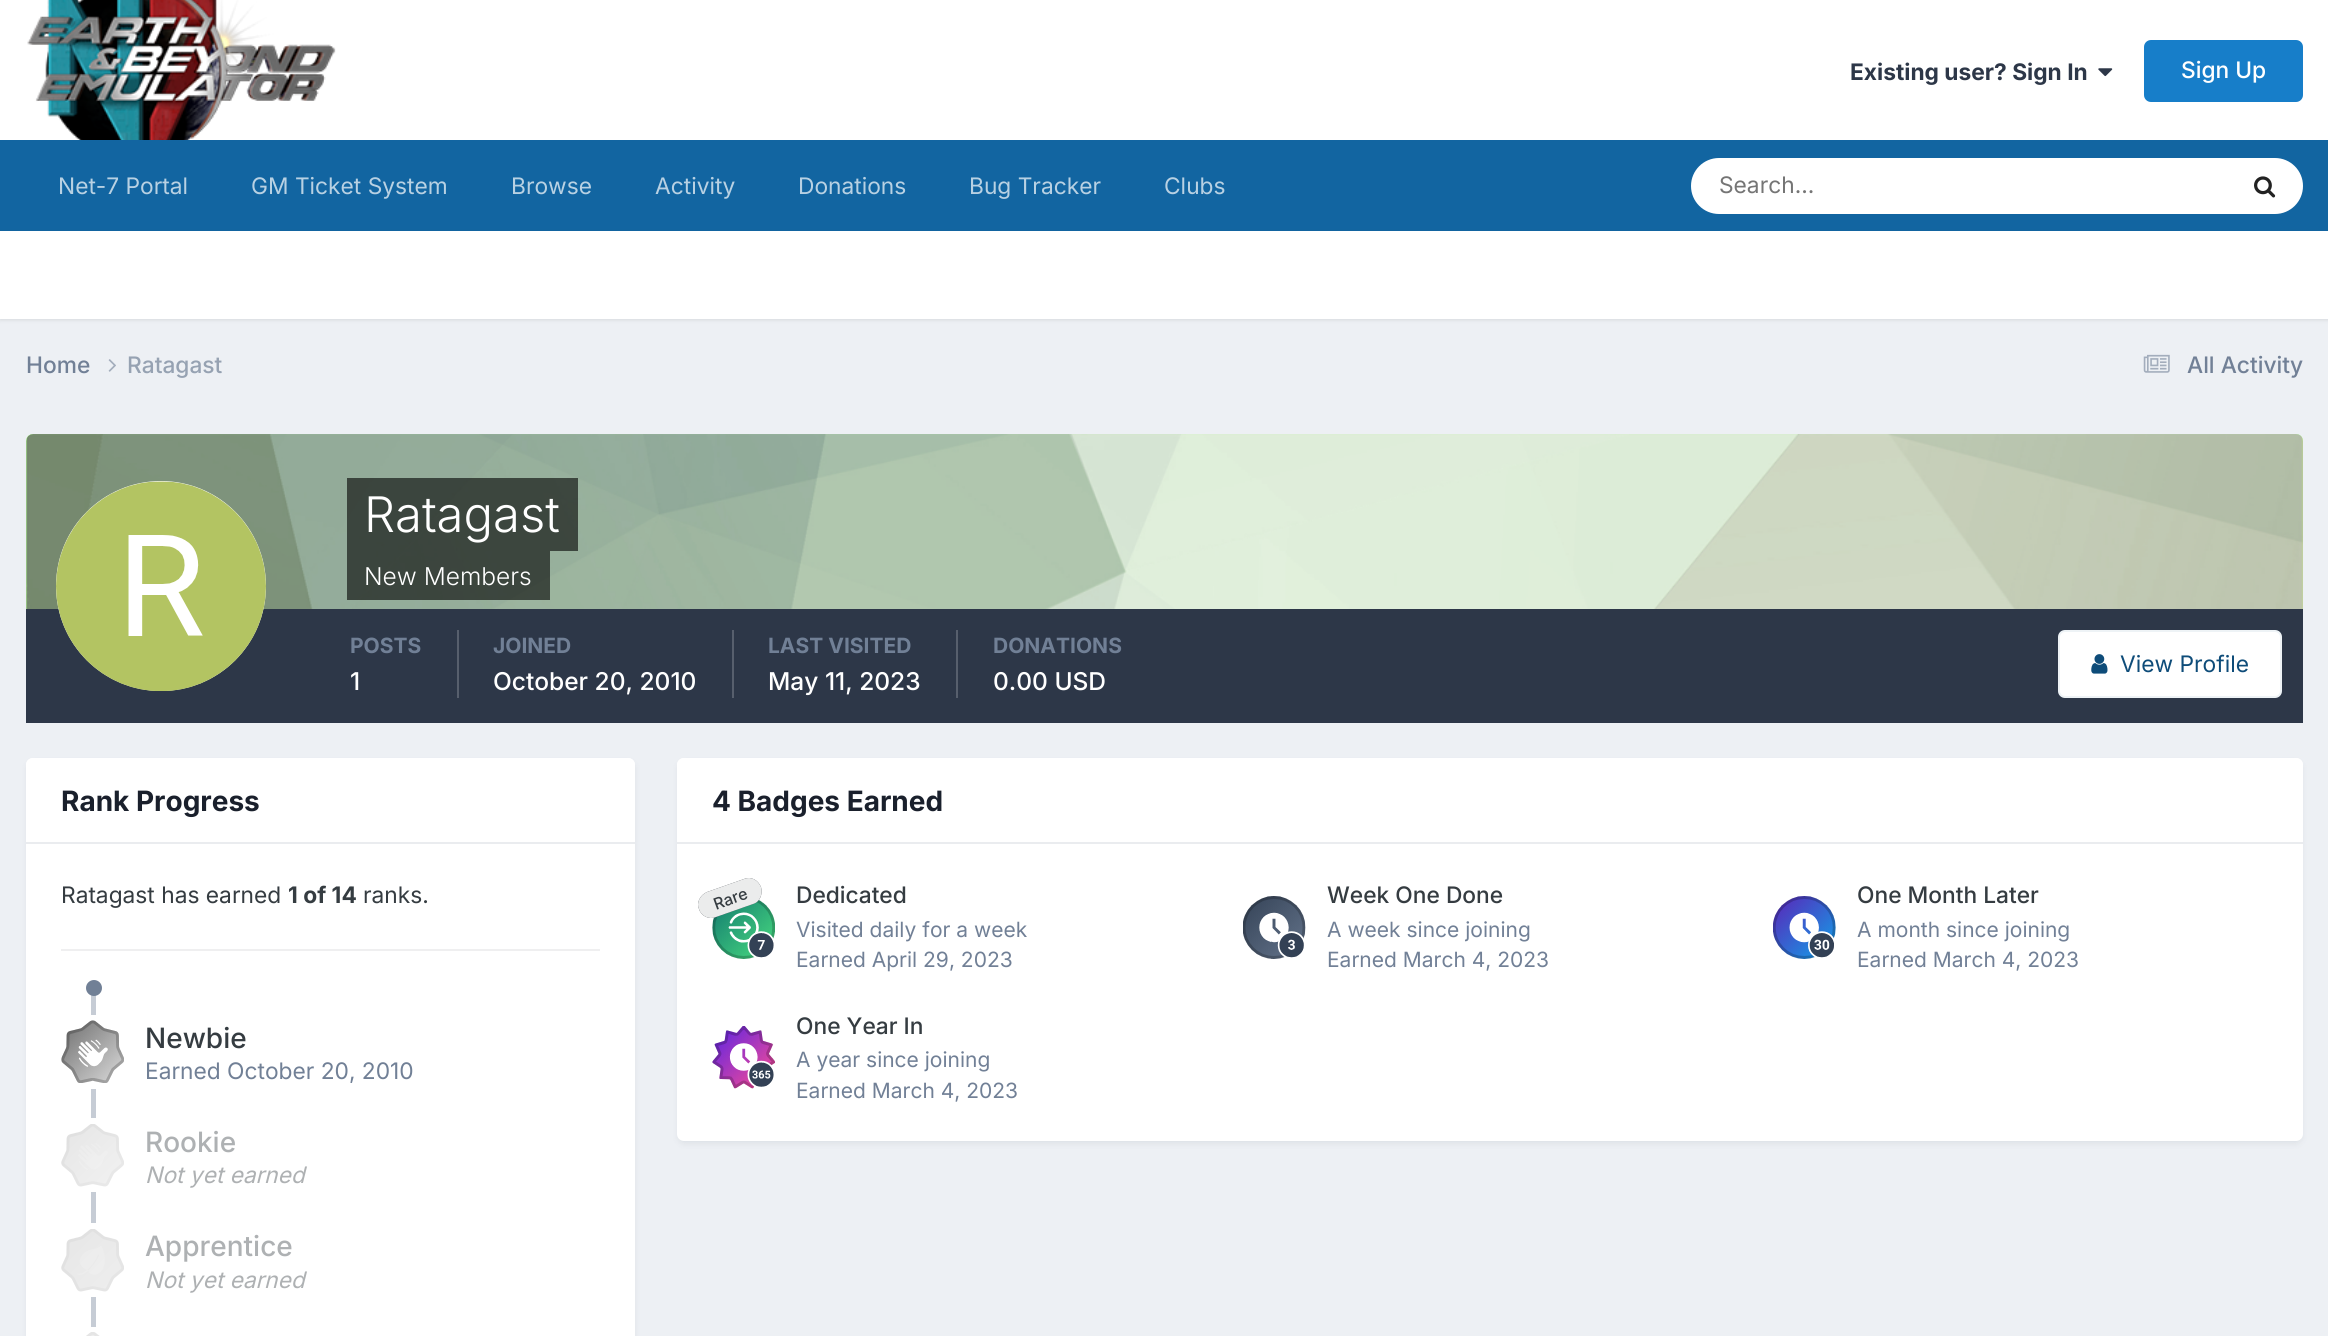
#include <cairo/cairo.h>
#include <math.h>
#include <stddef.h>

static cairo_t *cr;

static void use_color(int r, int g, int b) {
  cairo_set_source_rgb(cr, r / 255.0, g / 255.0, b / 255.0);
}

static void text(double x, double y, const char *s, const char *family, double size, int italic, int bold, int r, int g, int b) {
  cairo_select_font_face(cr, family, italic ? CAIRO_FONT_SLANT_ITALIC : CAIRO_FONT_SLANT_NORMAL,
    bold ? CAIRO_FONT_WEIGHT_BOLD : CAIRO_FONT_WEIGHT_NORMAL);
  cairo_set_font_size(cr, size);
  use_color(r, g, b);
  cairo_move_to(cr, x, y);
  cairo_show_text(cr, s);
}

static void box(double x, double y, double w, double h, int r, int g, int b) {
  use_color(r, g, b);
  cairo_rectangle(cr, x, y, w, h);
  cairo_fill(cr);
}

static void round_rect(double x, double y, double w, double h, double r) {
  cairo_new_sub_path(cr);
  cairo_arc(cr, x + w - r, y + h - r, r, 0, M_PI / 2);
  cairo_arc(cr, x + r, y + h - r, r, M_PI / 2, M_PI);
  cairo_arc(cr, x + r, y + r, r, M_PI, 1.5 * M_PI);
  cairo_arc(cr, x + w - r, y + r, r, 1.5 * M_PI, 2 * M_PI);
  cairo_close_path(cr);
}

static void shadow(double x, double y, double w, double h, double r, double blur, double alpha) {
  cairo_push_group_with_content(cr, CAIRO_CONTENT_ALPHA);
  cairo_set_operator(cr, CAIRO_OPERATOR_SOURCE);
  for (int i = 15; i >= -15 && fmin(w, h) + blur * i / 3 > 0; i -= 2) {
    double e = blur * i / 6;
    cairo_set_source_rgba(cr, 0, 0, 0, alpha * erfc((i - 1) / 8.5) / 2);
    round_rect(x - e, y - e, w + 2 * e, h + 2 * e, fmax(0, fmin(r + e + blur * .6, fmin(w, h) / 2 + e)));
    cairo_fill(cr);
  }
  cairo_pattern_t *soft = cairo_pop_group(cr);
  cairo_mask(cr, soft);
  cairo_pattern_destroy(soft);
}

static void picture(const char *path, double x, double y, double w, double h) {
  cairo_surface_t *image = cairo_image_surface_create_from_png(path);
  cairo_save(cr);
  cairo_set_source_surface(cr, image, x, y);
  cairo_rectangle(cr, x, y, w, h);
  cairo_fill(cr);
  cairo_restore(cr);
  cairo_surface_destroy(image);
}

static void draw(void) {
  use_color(237, 240, 244);
  cairo_paint(cr);
  box(0, 0, 2328, 140, 255, 255, 255);
  picture("img_01.png", 27, 0, 309, 140);
  picture("img_02.png", 2098, 68, 15, 9);
  use_color(23, 126, 201);
  round_rect(2144, 40, 159, 62, 7);
  cairo_fill(cr);
  box(0, 140, 2328, 91, 18, 101, 161);
  use_color(255, 255, 255);
  round_rect(1691, 158, 612, 56, 28);
  cairo_fill(cr);
  picture("img_03.png", 2254, 176, 22, 22);
  use_color(0, 0, 0);
  shadow(0, 233, 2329, 87, 0, 2, 0.1);
  box(0, 231, 2328, 88, 255, 255, 255);
  picture("img_04.png", 108, 359, 8, 13);
  picture("img_05.png", 2143, 354, 27, 19);
  use_color(182, 255, 153);
  cairo_new_path(cr);
  cairo_move_to(cr, 33, 434);
  cairo_line_to(cr, 2296, 434);
  cairo_curve_to(cr, 2300, 434, 2303, 437, 2303, 441);
  cairo_line_to(cr, 2303, 609);
  cairo_line_to(cr, 26, 609);
  cairo_line_to(cr, 26, 441);
  cairo_curve_to(cr, 26, 437, 29, 434, 33, 434);
  cairo_close_path(cr);
  cairo_fill(cr);
  picture("img_06.png", 26, 434, 2277, 175);
  box(26, 609, 2277, 114, 45, 55, 72);
  use_color(255, 255, 255);
  cairo_arc(cr, 161, 586, 105, 0, 2 * M_PI);
  cairo_fill(cr);
  picture("img_07.png", 56, 481, 210, 210);
  cairo_set_source_rgba(cr, 0, 0, 0, 0.6);
  cairo_rectangle(cr, 347, 478, 231, 73);
  cairo_fill(cr);
  cairo_rectangle(cr, 347, 551, 203, 49);
  cairo_fill(cr);
  box(457, 630, 2, 68, 87, 95, 109);
  box(732, 630, 2, 68, 87, 95, 109);
  box(956, 630, 2, 68, 87, 95, 109);
  use_color(255, 255, 255);
  round_rect(2058, 630, 224, 68, 7);
  cairo_fill(cr);
  round_rect(2059, 631, 222, 66, 6);
  cairo_set_source_rgba(cr, 0.055, 0.298, 0.475, 0.07);
  cairo_stroke(cr);
  picture("img_08.png", 2091, 654, 17, 20);
  use_color(45, 55, 72);
  shadow(28, 763, 606, 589, 5, 3.5, 0.1);
  use_color(255, 255, 255);
  round_rect(26, 758, 609, 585, 7);
  cairo_fill(cr);
  cairo_new_path(cr);
  cairo_move_to(cr, 33, 758);
  cairo_line_to(cr, 628, 758);
  cairo_curve_to(cr, 632, 758, 635, 761, 635, 765);
  cairo_line_to(cr, 635, 844);
  cairo_line_to(cr, 26, 844);
  cairo_line_to(cr, 26, 765);
  cairo_curve_to(cr, 26, 761, 29, 758, 33, 758);
  cairo_close_path(cr);
  cairo_fill(cr);
  box(26, 842, 609, 2, 234, 236, 239);
  box(61, 949, 539, 2, 239, 239, 240);
  box(91, 995, 5, 332, 198, 204, 213);
  use_color(113, 128, 150);
  cairo_arc(cr, 94, 988, 8, 0, 2 * M_PI);
  cairo_fill(cr);
  box(91, 1015, 5, 74, 255, 255, 255);
  picture("img_09.png", 61, 1020, 63, 63);
  box(91, 1118, 5, 74, 255, 255, 255);
  picture("img_10.png", 61, 1124, 63, 63);
  box(91, 1223, 5, 74, 255, 255, 255);
  picture("img_11.png", 61, 1229, 63, 63);
  picture("img_12.png", 86, 1332, 14, 4);
  use_color(45, 55, 72);
  shadow(679, 763, 1622, 380, 5, 3.5, 0.1);
  use_color(255, 255, 255);
  round_rect(677, 758, 1626, 383, 7);
  cairo_fill(cr);
  cairo_new_path(cr);
  cairo_move_to(cr, 684, 758);
  cairo_line_to(cr, 2296, 758);
  cairo_curve_to(cr, 2300, 758, 2303, 761, 2303, 765);
  cairo_line_to(cr, 2303, 844);
  cairo_line_to(cr, 677, 844);
  cairo_line_to(cr, 677, 765);
  cairo_curve_to(cr, 677, 761, 680, 758, 684, 758);
  cairo_close_path(cr);
  cairo_fill(cr);
  box(677, 842, 1626, 2, 234, 236, 239);
  picture("img_13.png", 712, 897, 63, 62);
  use_color(53, 60, 65);
  cairo_new_path(cr);
  cairo_move_to(cr, 707, 892);
  cairo_line_to(cr, 744, 879);
  cairo_curve_to(cr, 751, 876, 758, 880, 761, 887);
  cairo_curve_to(cr, 763, 894, 760, 902, 753, 904);
  cairo_line_to(cr, 716, 917);
  cairo_curve_to(cr, 709, 920, 701, 916, 699, 909);
  cairo_curve_to(cr, 696, 903, 700, 895, 707, 892);
  cairo_close_path(cr);
  cairo_fill(cr);
  cairo_set_source_rgba(cr, 1, 1, 1, 0.9);
  cairo_new_path(cr);
  cairo_move_to(cr, 707, 892);
  cairo_line_to(cr, 744, 879);
  cairo_curve_to(cr, 751, 876, 758, 880, 761, 887);
  cairo_curve_to(cr, 763, 894, 760, 902, 753, 904);
  cairo_line_to(cr, 716, 917);
  cairo_curve_to(cr, 709, 920, 701, 916, 699, 909);
  cairo_curve_to(cr, 696, 903, 700, 895, 707, 892);
  cairo_close_path(cr);
  cairo_fill(cr);
  picture("img_14.png", 1243, 896, 63, 63);
  picture("img_15.png", 1773, 896, 63, 63);
  picture("img_16.png", 712, 1026, 63, 63);
  text(1850, 80, "Existing user? Sign In", "Inter", 22.75, 0, 1, 45, 55, 72);
  text(2181, 78, "Sign Up", "Inter Medium", 22.75, 0, 0, 255, 255, 255);
  text(58, 194, "Net-7 Portal", "Inter", 22.75, 0, 0, 184, 209, 227);
  text(251, 194, "GM Ticket System", "Inter", 22.75, 0, 0, 184, 209, 227);
  text(511, 194, "Browse", "Inter", 22.75, 0, 0, 184, 209, 227);
  text(655, 194, "Activity", "Inter", 22.75, 0, 0, 184, 209, 227);
  text(798, 194, "Donations", "Inter", 22.75, 0, 0, 184, 209, 227);
  text(969, 194, "Bug Tracker", "Inter", 22.75, 0, 0, 184, 209, 227);
  text(1164, 194, "Clubs", "Inter", 22.75, 0, 0, 184, 209, 227);
  text(1719, 193, "Search...", "Inter", 22.75, 0, 0, 117, 117, 117);
  text(26, 373, "Home", "Inter Medium", 22.75, 0, 0, 113, 128, 150);
  text(127, 373, "Ratagast", "Inter Medium", 22.75, 0, 0, 150, 162, 178);
  text(2187, 373, "All Activity", "Inter Medium", 22.75, 0, 0, 113, 128, 150);
  text(364, 532, "Ratagast", "Inter Light", 49, 0, 0, 255, 255, 255);
  text(364, 585, "New Members", "Inter Light", 24.5, 0, 0, 255, 255, 255);
  text(350, 653, "POSTS", "Inter", 21, 0, 1, 113, 128, 150);
  text(350, 690, "1", "Inter Medium", 24.5, 0, 0, 255, 255, 255);
  text(493, 653, "JOINED", "Inter", 21, 0, 1, 113, 128, 150);
  text(493, 690, "October 20, 2010", "Inter Medium", 24.5, 0, 0, 255, 255, 255);
  text(768, 653, "LAST VISITED", "Inter", 21, 0, 1, 113, 128, 150);
  text(768, 690, "May 11, 2023", "Inter Medium", 24.5, 0, 0, 255, 255, 255);
  text(993, 653, "DONATIONS", "Inter", 21, 0, 1, 113, 128, 150);
  text(993, 690, "0.00 USD", "Inter Medium", 24.5, 0, 0, 255, 255, 255);
  text(2120, 672, "View Profile", "Inter", 22.75, 0, 0, 14, 76, 121);
  text(61, 811, "Rank Progress", "Inter", 28, 0, 1, 26, 32, 44);
  text(61, 903, "Ratagast has earned", "Inter", 22.75, 0, 0, 53, 60, 65);
  text(288, 903, "1 of 14", "Inter", 22.75, 0, 1, 53, 60, 65);
  text(363, 903, "ranks.", "Inter", 22.75, 0, 0, 53, 60, 65);
  text(145, 1048, "Newbie", "Inter Medium", 28, 0, 0, 53, 60, 65);
  text(145, 1079, "Earned October 20, 2010", "Inter", 22.75, 0, 0, 113, 128, 150);
  text(145, 1152, "Rookie", "Inter Medium", 28, 0, 0, 174, 177, 179);
  text(145, 1183, "Not yet earned", "Inter", 22.75, 1, 0, 174, 177, 179);
  text(145, 1256, "Apprentice", "Inter Medium", 28, 0, 0, 174, 177, 179);
  text(145, 1288, "Not yet earned", "Inter", 22.75, 1, 0, 174, 177, 179);
  text(712, 811, "4 Badges Earned", "Inter", 28, 0, 1, 26, 32, 44);
  cairo_save(cr);
  cairo_translate(cr, 716, 910);
  cairo_rotate(cr, -20 * M_PI / 180);
  text(0, 0, "Rare", "Inter Medium", 16, 0, 0, 53, 60, 65);
  cairo_restore(cr);
  text(796, 903, "Dedicated", "Inter Medium", 22.75, 0, 0, 53, 60, 65);
  text(796, 937, "Visited daily for a week", "Inter", 21, 0, 0, 113, 128, 150);
  text(796, 967, "Earned April 29, 2023", "Inter", 21, 0, 0, 113, 128, 150);
  text(1327, 903, "Week One Done", "Inter Medium", 22.75, 0, 0, 53, 60, 65);
  text(1327, 937, "A week since joining", "Inter", 21, 0, 0, 113, 128, 150);
  text(1327, 967, "Earned March 4, 2023", "Inter", 21, 0, 0, 113, 128, 150);
  text(1857, 903, "One Month Later", "Inter Medium", 22.75, 0, 0, 53, 60, 65);
  text(1857, 937, "A month since joining", "Inter", 21, 0, 0, 113, 128, 150);
  text(1857, 967, "Earned March 4, 2023", "Inter", 21, 0, 0, 113, 128, 150);
  text(796, 1034, "One Year In", "Inter Medium", 22.75, 0, 0, 53, 60, 65);
  text(796, 1067, "A year since joining", "Inter", 21, 0, 0, 113, 128, 150);
  text(796, 1098, "Earned March 4, 2023", "Inter", 21, 0, 0, 113, 128, 150);
}

int main(void) {
  cairo_surface_t *surface = cairo_image_surface_create(CAIRO_FORMAT_RGB24, 2328, 1336);
  cr = cairo_create(surface);
  cairo_font_options_t *options = cairo_font_options_create();
  cairo_font_options_set_hint_metrics(options, CAIRO_HINT_METRICS_OFF);
  cairo_font_options_set_hint_style(options, CAIRO_HINT_STYLE_NONE);
  cairo_set_font_options(cr, options);
  cairo_set_miter_limit(cr, 4);
  draw();
  cairo_surface_write_to_png(surface, "out.png");
  cairo_font_options_destroy(options);
  cairo_destroy(cr);
  cairo_surface_destroy(surface);
  return 0;
}
